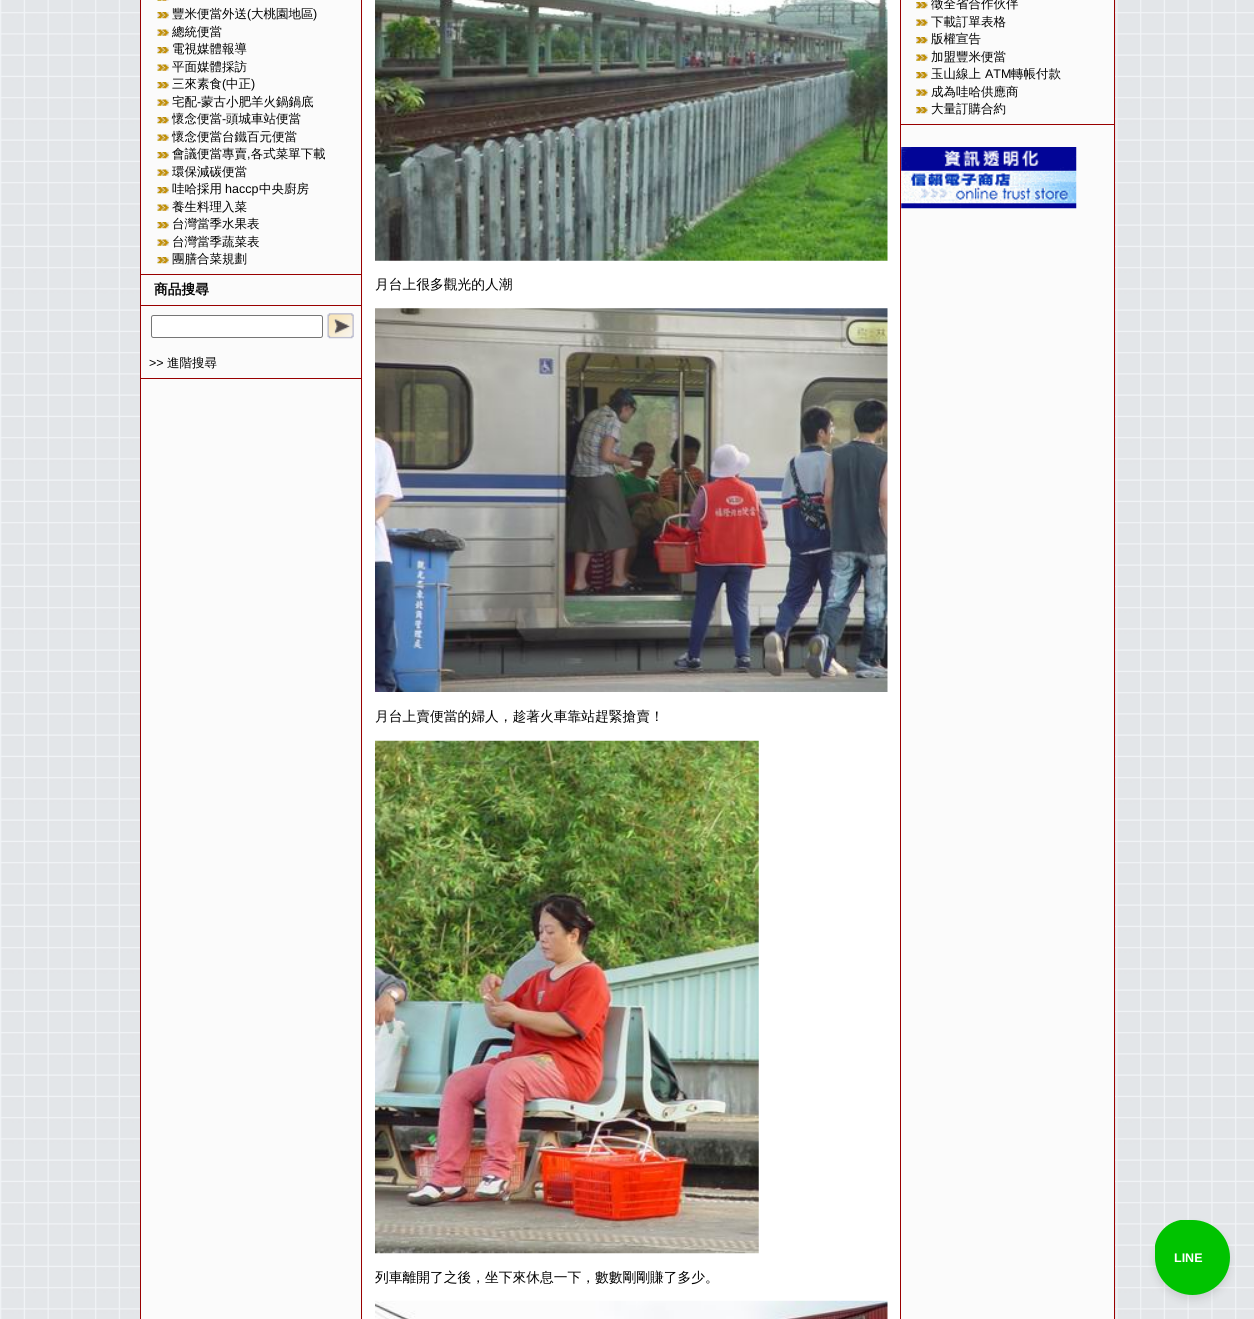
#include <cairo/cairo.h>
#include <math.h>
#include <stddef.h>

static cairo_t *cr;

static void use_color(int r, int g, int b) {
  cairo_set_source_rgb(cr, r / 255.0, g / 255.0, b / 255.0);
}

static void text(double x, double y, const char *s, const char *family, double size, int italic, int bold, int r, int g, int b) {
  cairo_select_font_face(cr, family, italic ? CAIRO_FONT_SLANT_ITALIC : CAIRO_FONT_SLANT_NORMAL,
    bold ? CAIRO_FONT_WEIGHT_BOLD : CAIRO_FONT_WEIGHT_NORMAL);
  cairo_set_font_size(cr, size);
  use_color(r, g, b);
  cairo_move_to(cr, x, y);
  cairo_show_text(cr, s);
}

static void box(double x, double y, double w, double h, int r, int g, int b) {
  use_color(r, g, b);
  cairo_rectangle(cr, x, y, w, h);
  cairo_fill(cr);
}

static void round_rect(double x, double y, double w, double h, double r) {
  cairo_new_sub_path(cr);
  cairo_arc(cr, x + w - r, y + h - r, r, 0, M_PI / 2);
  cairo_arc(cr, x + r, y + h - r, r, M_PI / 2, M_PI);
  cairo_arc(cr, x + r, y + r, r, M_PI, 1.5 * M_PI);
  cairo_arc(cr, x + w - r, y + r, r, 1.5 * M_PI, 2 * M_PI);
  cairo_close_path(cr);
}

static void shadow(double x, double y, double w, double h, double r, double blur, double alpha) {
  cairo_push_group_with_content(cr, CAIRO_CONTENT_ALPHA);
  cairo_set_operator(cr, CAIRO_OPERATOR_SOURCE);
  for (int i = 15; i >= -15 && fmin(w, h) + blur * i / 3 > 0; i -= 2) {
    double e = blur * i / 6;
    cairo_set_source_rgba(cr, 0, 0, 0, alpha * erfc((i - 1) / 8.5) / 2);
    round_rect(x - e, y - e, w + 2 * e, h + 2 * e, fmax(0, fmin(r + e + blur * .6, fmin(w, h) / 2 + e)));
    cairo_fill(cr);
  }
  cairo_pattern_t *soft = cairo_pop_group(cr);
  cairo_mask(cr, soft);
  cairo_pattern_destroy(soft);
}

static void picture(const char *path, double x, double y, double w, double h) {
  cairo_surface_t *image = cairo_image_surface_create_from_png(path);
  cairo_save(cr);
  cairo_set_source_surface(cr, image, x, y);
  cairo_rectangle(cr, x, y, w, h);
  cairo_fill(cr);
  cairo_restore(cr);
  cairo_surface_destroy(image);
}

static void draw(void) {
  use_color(255, 255, 255);
  cairo_paint(cr);
  picture("img_01.png", 0, 0, 1254, 1319);
  use_color(251, 251, 251);
  cairo_rectangle(cr, 140.5, -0.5, 974, 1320);
  cairo_fill_preserve(cr);
  use_color(153, 0, 0);
  cairo_set_line_width(cr, 1);
  cairo_stroke(cr);
  box(361, 0, 1, 1319, 153, 0, 0);
  box(141, 274, 220, 1, 153, 0, 0);
  picture("img_02.png", 157, 0, 12, 1);
  picture("img_03.png", 157, 12, 12, 7);
  picture("img_04.png", 157, 29, 12, 7);
  picture("img_03.png", 157, 47, 12, 7);
  picture("img_04.png", 157, 64, 12, 7);
  picture("img_03.png", 157, 82, 12, 7);
  picture("img_04.png", 157, 99, 12, 7);
  picture("img_03.png", 157, 117, 12, 7);
  picture("img_04.png", 157, 134, 12, 7);
  picture("img_03.png", 157, 152, 12, 7);
  picture("img_04.png", 157, 169, 12, 7);
  picture("img_03.png", 157, 187, 12, 7);
  picture("img_04.png", 157, 204, 12, 7);
  picture("img_03.png", 157, 222, 12, 7);
  picture("img_04.png", 157, 239, 12, 7);
  picture("img_03.png", 157, 257, 12, 7);
  box(141, 305, 220, 1, 153, 0, 0);
  box(141, 378, 220, 1, 153, 0, 0);
  use_color(255, 255, 255);
  round_rect(151.5, 315.5, 171, 22, 2);
  cairo_fill_preserve(cr);
  use_color(118, 118, 118);
  cairo_stroke(cr);
  picture("img_05.png", 327, 313, 27, 26);
  box(900, 0, 1, 1319, 153, 0, 0);
  box(901, 124, 213, 1, 153, 0, 0);
  picture("img_06.png", 916, 2, 12, 7);
  picture("img_07.png", 916, 19, 12, 7);
  picture("img_06.png", 916, 37, 12, 7);
  picture("img_07.png", 916, 54, 12, 7);
  picture("img_06.png", 916, 72, 12, 7);
  picture("img_07.png", 916, 89, 12, 7);
  picture("img_06.png", 916, 107, 12, 7);
  picture("img_08.png", 901, 147, 176, 62);
  box(363, 0, 537, 1319, 255, 255, 255);
  picture("img_09.png", 375, 0, 513, 261);
  picture("img_10.png", 375, 308, 513, 384);
  picture("img_11.png", 375, 740, 384, 514);
  picture("img_12.png", 375, 1300, 513, 19);
  use_color(0, 0, 0);
  shadow(1155, 1225, 75, 75, 37.5, 4, 0.1);
  use_color(0, 195, 0);
  cairo_arc(cr, 1192.5, 1257.5, 37.5, 0, 2 * M_PI);
  cairo_fill(cr);
  cairo_save(cr);
  cairo_rectangle(cr, 1155, 1220, 75, 75);
  cairo_clip(cr);
  cairo_arc(cr, 1186, 1251, 31.5, 0, 2 * M_PI);
  cairo_fill(cr);
  cairo_restore(cr);
  text(172, 18, "豐米便當外送", "WenQuanYi Zen Hei Medium", 12.5, 0, 0, 0, 0, 0);
  text(247, 18, "(", "Liberation Sans", 12.5, 0, 0, 0, 0, 0);
  text(251, 18, "大桃園地區", "WenQuanYi Zen Hei Medium", 12.5, 0, 0, 0, 0, 0);
  text(313, 18, ")", "Liberation Sans", 12.5, 0, 0, 0, 0, 0);
  text(172, 36, "總統便當", "WenQuanYi Zen Hei Medium", 12.5, 0, 0, 0, 0, 0);
  text(172, 53, "電視媒體報導", "WenQuanYi Zen Hei Medium", 12.5, 0, 0, 0, 0, 0);
  text(172, 71, "平面媒體採訪", "WenQuanYi Zen Hei Medium", 12.5, 0, 0, 0, 0, 0);
  text(172, 88, "三來素食", "WenQuanYi Zen Hei Medium", 12.5, 0, 0, 0, 0, 0);
  text(222, 88, "(", "Liberation Sans", 12.5, 0, 0, 0, 0, 0);
  text(226, 88, "中正", "WenQuanYi Zen Hei Medium", 12.5, 0, 0, 0, 0, 0);
  text(251, 88, ")", "Liberation Sans", 12.5, 0, 0, 0, 0, 0);
  text(172, 106, "宅配", "WenQuanYi Zen Hei Medium", 12.5, 0, 0, 0, 0, 0);
  text(197, 106, "-", "Liberation Sans", 12.5, 0, 0, 0, 0, 0);
  text(201, 106, "蒙古小肥羊火鍋鍋底", "WenQuanYi Zen Hei Medium", 12.5, 0, 0, 0, 0, 0);
  text(172, 123, "懷念便當", "WenQuanYi Zen Hei Medium", 12.5, 0, 0, 0, 0, 0);
  text(222, 123, "-", "Liberation Sans", 12.5, 0, 0, 0, 0, 0);
  text(226, 123, "頭城車站便當", "WenQuanYi Zen Hei Medium", 12.5, 0, 0, 0, 0, 0);
  text(172, 141, "懷念便當台鐵百元便當", "WenQuanYi Zen Hei Medium", 12.5, 0, 0, 0, 0, 0);
  text(172, 158, "會議便當專賣 各式菜單下載", "WenQuanYi Zen Hei Medium", 12.5, 0, 0, 0, 0, 0);
  text(247, 158, ",", "Liberation Sans", 12.5, 0, 0, 0, 0, 0);
  text(172, 176, "環保減碳便當", "WenQuanYi Zen Hei Medium", 12.5, 0, 0, 0, 0, 0);
  text(172, 193, "哇哈採用", "WenQuanYi Zen Hei Medium", 12.5, 0, 0, 0, 0, 0);
  text(225, 193, "haccp", "Liberation Sans", 12.5, 0, 0, 0, 0, 0);
  text(259, 193, "中央廚房", "WenQuanYi Zen Hei Medium", 12.5, 0, 0, 0, 0, 0);
  text(172, 211, "養生料理入菜", "WenQuanYi Zen Hei Medium", 12.5, 0, 0, 0, 0, 0);
  text(172, 228, "台灣當季水果表", "WenQuanYi Zen Hei Medium", 12.5, 0, 0, 0, 0, 0);
  text(172, 246, "台灣當季蔬菜表", "WenQuanYi Zen Hei Medium", 12.5, 0, 0, 0, 0, 0);
  text(172, 263, "團膳合菜規劃", "WenQuanYi Zen Hei Medium", 12.5, 0, 0, 0, 0, 0);
  text(154, 294, "商品搜尋", "WenQuanYi Zen Hei", 13.75, 0, 1, 0, 0, 0);
  text(149, 367, ">>", "Liberation Sans", 12.5, 0, 0, 0, 0, 0);
  text(167, 367, "進階搜尋", "WenQuanYi Zen Hei Medium", 12.5, 0, 0, 0, 0, 0);
  text(931, 8, "徵全省合作伙伴", "WenQuanYi Zen Hei Medium", 12.5, 0, 0, 0, 0, 0);
  text(931, 26, "下載訂單表格", "WenQuanYi Zen Hei Medium", 12.5, 0, 0, 0, 0, 0);
  text(931, 43, "版權宣告", "WenQuanYi Zen Hei Medium", 12.5, 0, 0, 0, 0, 0);
  text(931, 61, "加盟豐米便當", "WenQuanYi Zen Hei Medium", 12.5, 0, 0, 0, 0, 0);
  text(931, 78, "玉山線上", "WenQuanYi Zen Hei Medium", 12.5, 0, 0, 0, 0, 0);
  text(985, 78, "ATM", "Liberation Sans", 12.5, 0, 0, 0, 0, 0);
  text(1011, 78, "轉帳付款", "WenQuanYi Zen Hei Medium", 12.5, 0, 0, 0, 0, 0);
  text(931, 96, "成為哇哈供應商", "WenQuanYi Zen Hei Medium", 12.5, 0, 0, 0, 0, 0);
  text(931, 113, "大量訂購合約", "WenQuanYi Zen Hei Medium", 12.5, 0, 0, 0, 0, 0);
  text(375, 289, "月台上很多觀光的人潮", "WenQuanYi Zen Hei Medium", 13.75, 0, 0, 0, 0, 0);
  text(375, 721, "月台上賣便當的婦人，趁著火車靠站趕緊搶賣！", "WenQuanYi Zen Hei Medium", 13.75, 0, 0, 0, 0, 0);
  text(375, 1282, "列車離開了之後，坐下來休息一下，數數剛剛賺了多少。", "WenQuanYi Zen Hei Medium", 13.75, 0, 0, 0, 0, 0);
  text(1174, 1262, "LINE", "Liberation Sans", 12.5, 0, 1, 255, 255, 255);
}

int main(void) {
  cairo_surface_t *surface = cairo_image_surface_create(CAIRO_FORMAT_RGB24, 1254, 1319);
  cr = cairo_create(surface);
  cairo_font_options_t *options = cairo_font_options_create();
  cairo_font_options_set_hint_metrics(options, CAIRO_HINT_METRICS_OFF);
  cairo_font_options_set_hint_style(options, CAIRO_HINT_STYLE_NONE);
  cairo_set_font_options(cr, options);
  cairo_set_miter_limit(cr, 4);
  draw();
  cairo_surface_write_to_png(surface, "out.png");
  cairo_font_options_destroy(options);
  cairo_destroy(cr);
  cairo_surface_destroy(surface);
  return 0;
}
